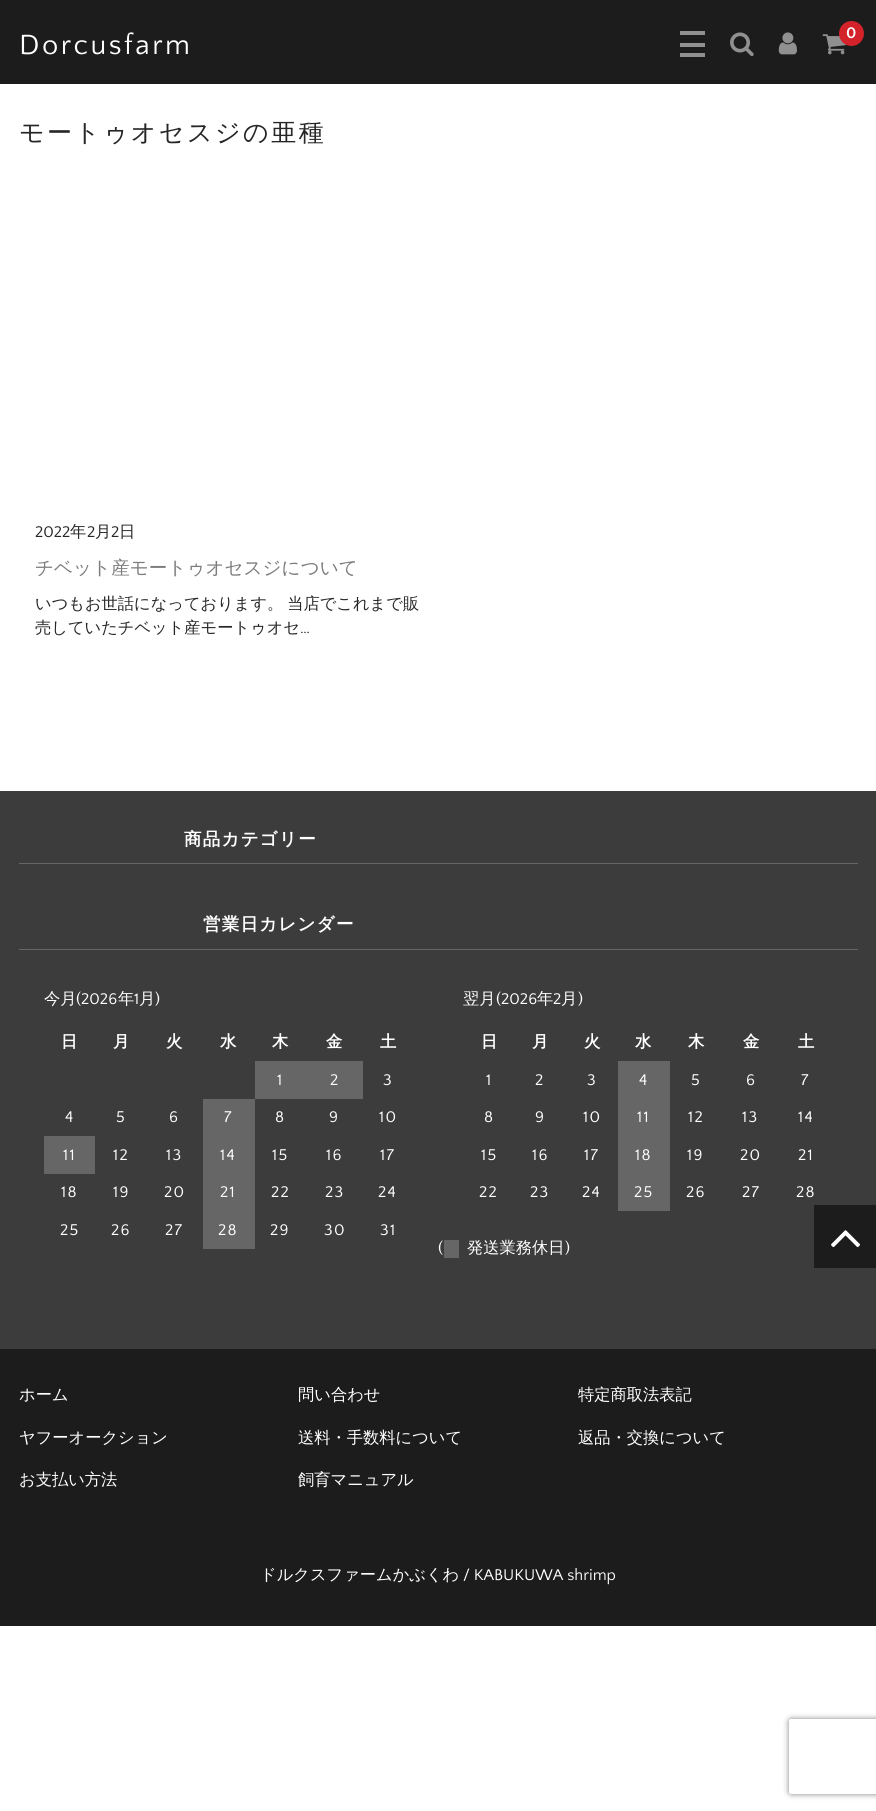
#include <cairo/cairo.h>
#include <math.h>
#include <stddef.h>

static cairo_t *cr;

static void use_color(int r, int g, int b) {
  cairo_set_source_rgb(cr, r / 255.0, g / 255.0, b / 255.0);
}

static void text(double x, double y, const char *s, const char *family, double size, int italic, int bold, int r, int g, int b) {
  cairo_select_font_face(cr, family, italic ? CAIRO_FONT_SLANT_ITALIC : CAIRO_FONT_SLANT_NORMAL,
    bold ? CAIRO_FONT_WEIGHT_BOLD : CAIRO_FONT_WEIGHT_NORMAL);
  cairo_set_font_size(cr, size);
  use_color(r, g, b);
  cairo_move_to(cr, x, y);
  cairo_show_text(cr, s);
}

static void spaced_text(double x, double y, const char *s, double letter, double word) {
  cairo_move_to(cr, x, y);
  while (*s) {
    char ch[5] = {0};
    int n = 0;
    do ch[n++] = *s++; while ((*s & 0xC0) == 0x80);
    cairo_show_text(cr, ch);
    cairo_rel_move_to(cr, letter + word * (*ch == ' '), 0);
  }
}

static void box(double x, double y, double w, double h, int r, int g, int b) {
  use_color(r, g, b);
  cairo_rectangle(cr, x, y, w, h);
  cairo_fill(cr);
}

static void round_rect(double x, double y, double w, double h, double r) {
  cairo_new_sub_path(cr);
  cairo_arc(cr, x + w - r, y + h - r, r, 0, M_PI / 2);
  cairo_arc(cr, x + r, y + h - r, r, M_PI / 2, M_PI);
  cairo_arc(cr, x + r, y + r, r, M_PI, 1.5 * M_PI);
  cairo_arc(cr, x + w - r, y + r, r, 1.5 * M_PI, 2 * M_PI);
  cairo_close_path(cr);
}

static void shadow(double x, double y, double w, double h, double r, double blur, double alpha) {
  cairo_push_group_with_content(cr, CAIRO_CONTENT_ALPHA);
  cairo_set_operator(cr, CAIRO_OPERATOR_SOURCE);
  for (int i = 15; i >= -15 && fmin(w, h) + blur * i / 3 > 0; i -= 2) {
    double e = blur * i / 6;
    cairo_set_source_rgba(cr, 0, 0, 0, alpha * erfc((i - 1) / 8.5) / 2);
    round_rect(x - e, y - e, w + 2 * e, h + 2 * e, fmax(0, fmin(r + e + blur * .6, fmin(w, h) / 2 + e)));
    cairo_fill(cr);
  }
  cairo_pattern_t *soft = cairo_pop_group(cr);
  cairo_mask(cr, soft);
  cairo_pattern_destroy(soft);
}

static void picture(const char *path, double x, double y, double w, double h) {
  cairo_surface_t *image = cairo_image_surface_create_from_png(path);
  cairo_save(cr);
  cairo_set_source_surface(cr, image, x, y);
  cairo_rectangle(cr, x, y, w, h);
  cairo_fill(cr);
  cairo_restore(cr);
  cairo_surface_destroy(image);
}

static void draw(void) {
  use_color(255, 255, 255);
  cairo_paint(cr);
  box(0, 0, 876, 84, 28, 28, 28);
  box(680, 31, 25, 4, 144, 144, 144);
  box(680, 43, 25, 4, 144, 144, 144);
  box(680, 53, 25, 4, 144, 144, 144);
  picture("img_01.png", 730, 32, 24, 25);
  picture("img_02.png", 778, 32, 19, 23);
  picture("img_03.png", 822, 34, 25, 21);
  use_color(211, 34, 42);
  cairo_arc(cr, 851.5, 33.5, 12.5, 0, 2 * M_PI);
  cairo_fill(cr);
  box(0, 791, 876, 558, 60, 60, 60);
  box(19, 863, 839, 1, 102, 102, 102);
  box(19, 949, 839, 1, 102, 102, 102);
  box(255, 1061, 108, 38, 102, 102, 102);
  box(203, 1099, 52, 150, 102, 102, 102);
  box(44, 1136, 51, 38, 102, 102, 102);
  box(618, 1061, 52, 150, 102, 102, 102);
  box(444, 1240, 15, 18, 102, 102, 102);
  box(814, 1205, 62, 63, 28, 28, 28);
  picture("img_04.png", 831, 1230, 29, 18);
  box(0, 1349, 876, 277, 28, 28, 28);
  cairo_save(cr);
  cairo_set_fill_rule(cr, CAIRO_FILL_RULE_EVEN_ODD);
  cairo_new_path(cr);
  cairo_move_to(cr, 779, 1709);
  cairo_line_to(cr, 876, 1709);
  cairo_line_to(cr, 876, 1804);
  cairo_line_to(cr, 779, 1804);
  cairo_close_path(cr);
  cairo_move_to(cr, 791.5, 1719);
  cairo_line_to(cr, 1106.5, 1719);
  cairo_curve_to(cr, 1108, 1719, 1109, 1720, 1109, 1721.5);
  cairo_line_to(cr, 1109, 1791.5);
  cairo_curve_to(cr, 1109, 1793, 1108, 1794, 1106.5, 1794);
  cairo_line_to(cr, 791.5, 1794);
  cairo_curve_to(cr, 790, 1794, 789, 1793, 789, 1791.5);
  cairo_line_to(cr, 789, 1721.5);
  cairo_curve_to(cr, 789, 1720, 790, 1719, 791.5, 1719);
  cairo_close_path(cr);
  cairo_clip(cr);
  use_color(128, 128, 128);
  shadow(789, 1719, 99, 75, 2.5, 3, 1);
  cairo_restore(cr);
  cairo_select_font_face(cr, "Quattrocento Sans", CAIRO_FONT_SLANT_NORMAL, CAIRO_FONT_WEIGHT_NORMAL);
  cairo_set_font_size(cr, 29);
  use_color(255, 255, 255);
  spaced_text(19, 54, "Dorcusfarm", 2.5, 0);
  text(846, 38, "0", "Quattrocento Sans", 16.25, 0, 1, 255, 255, 255);
  cairo_select_font_face(cr, "WenQuanYi Zen Hei Medium", CAIRO_FONT_SLANT_NORMAL, CAIRO_FONT_WEIGHT_NORMAL);
  cairo_set_font_size(cr, 25);
  use_color(38, 38, 38);
  spaced_text(19, 141, "モートゥオセスジの亜種", 2.5, 0);
  text(35, 537, "2022", "Quattrocento Sans", 16.25, 0, 0, 38, 38, 38);
  text(70, 537, "年", "WenQuanYi Zen Hei Medium", 16.25, 0, 0, 38, 38, 38);
  text(87, 537, "2", "Quattrocento Sans", 16.25, 0, 0, 38, 38, 38);
  text(95, 537, "月", "WenQuanYi Zen Hei Medium", 16.25, 0, 0, 38, 38, 38);
  text(111, 537, "2", "Quattrocento Sans", 16.25, 0, 0, 38, 38, 38);
  text(119, 537, "日", "WenQuanYi Zen Hei Medium", 16.25, 0, 0, 38, 38, 38);
  text(35, 574, "チベット産モートゥオセスジについて", "WenQuanYi Zen Hei Medium", 18.6, 0, 0, 124, 124, 124);
  cairo_set_font_size(cr, 16.25);
  use_color(38, 38, 38);
  spaced_text(35, 609, "いつもお世話になっております。 当店でこれまで販", 0, -1);
  text(35, 633, "売していたチベット産モートゥオセ", "WenQuanYi Zen Hei Medium", 16.25, 0, 0, 38, 38, 38);
  text(300, 633, "…", "Quattrocento Sans", 16.25, 0, 0, 38, 38, 38);
  cairo_select_font_face(cr, "WenQuanYi Zen Hei", CAIRO_FONT_SLANT_NORMAL, CAIRO_FONT_WEIGHT_BOLD);
  cairo_set_font_size(cr, 17.5);
  use_color(255, 255, 255);
  spaced_text(184, 845, "商品カテゴリー", 1.25, 0);
  spaced_text(203, 930, "営業日カレンダー", 1.25, 0);
  text(44, 1004, "今月", "WenQuanYi Zen Hei Medium", 16.25, 0, 0, 255, 255, 255);
  text(76, 1004, "(2026", "Quattrocento Sans", 16.25, 0, 0, 255, 255, 255);
  text(118, 1004, "年 月", "WenQuanYi Zen Hei Medium", 16.25, 0, 0, 255, 255, 255);
  text(155, 1004, ")", "Quattrocento Sans", 16.25, 0, 0, 255, 255, 255);
  text(134, 1004, "1", "Quattrocento Sans", 16.25, 0, 0, 255, 255, 255);
  text(61, 1047, "日", "WenQuanYi Zen Hei", 16.25, 0, 1, 255, 255, 255);
  text(113, 1047, "月", "WenQuanYi Zen Hei", 16.25, 0, 1, 255, 255, 255);
  text(166, 1047, "火", "WenQuanYi Zen Hei", 16.25, 0, 1, 255, 255, 255);
  text(220, 1047, "水", "WenQuanYi Zen Hei", 16.25, 0, 1, 255, 255, 255);
  text(272, 1047, "木", "WenQuanYi Zen Hei", 16.25, 0, 1, 255, 255, 255);
  text(326, 1047, "金", "WenQuanYi Zen Hei", 16.25, 0, 1, 255, 255, 255);
  text(380, 1047, "土", "WenQuanYi Zen Hei", 16.25, 0, 1, 255, 255, 255);
  cairo_select_font_face(cr, "Quattrocento Sans", CAIRO_FONT_SLANT_NORMAL, CAIRO_FONT_WEIGHT_NORMAL);
  spaced_text(277, 1085, "1", 1.25, 0);
  spaced_text(330, 1085, "2", 1.25, 0);
  spaced_text(383, 1085, "3", 1.25, 0);
  spaced_text(65, 1122, "4", 1.25, 0);
  spaced_text(116, 1122, "5", 1.25, 0);
  spaced_text(169, 1122, "6", 1.25, 0);
  spaced_text(224, 1122, "7", 1.25, 0);
  spaced_text(275, 1122, "8", 1.25, 0);
  spaced_text(329, 1122, "9", 1.25, 0);
  spaced_text(379, 1122, "10", 1.25, 0);
  spaced_text(63, 1160, "11", 1.25, 0);
  spaced_text(113, 1160, "12", 1.25, 0);
  spaced_text(166, 1160, "13", 1.25, 0);
  spaced_text(220, 1160, "14", 1.25, 0);
  spaced_text(272, 1160, "15", 1.25, 0);
  spaced_text(326, 1160, "16", 1.25, 0);
  spaced_text(380, 1160, "17", 1.25, 0);
  spaced_text(61, 1197, "18", 1.25, 0);
  spaced_text(113, 1197, "19", 1.25, 0);
  spaced_text(164, 1197, "20", 1.25, 0);
  spaced_text(220, 1197, "21", 1.25, 0);
  spaced_text(271, 1197, "22", 1.25, 0);
  spaced_text(325, 1197, "23", 1.25, 0);
  spaced_text(378, 1197, "24", 1.25, 0);
  spaced_text(60, 1235, "25", 1.25, 0);
  spaced_text(111, 1235, "26", 1.25, 0);
  spaced_text(165, 1235, "27", 1.25, 0);
  spaced_text(218, 1235, "28", 1.25, 0);
  spaced_text(270, 1235, "29", 1.25, 0);
  spaced_text(324, 1235, "30", 1.25, 0);
  spaced_text(380, 1235, "31", 1.25, 0);
  text(463, 1004, "翌月", "WenQuanYi Zen Hei Medium", 16.25, 0, 0, 255, 255, 255);
  text(496, 1004, "(2026", "Quattrocento Sans", 16.25, 0, 0, 255, 255, 255);
  text(537, 1004, "年", "WenQuanYi Zen Hei Medium", 16.25, 0, 0, 255, 255, 255);
  text(553, 1004, "2", "Quattrocento Sans", 16.25, 0, 0, 255, 255, 255);
  text(561, 1004, "月", "WenQuanYi Zen Hei Medium", 16.25, 0, 0, 255, 255, 255);
  text(578, 1004, ")", "Quattrocento Sans", 16.25, 0, 0, 255, 255, 255);
  text(481, 1047, "日", "WenQuanYi Zen Hei", 16.25, 0, 1, 255, 255, 255);
  text(532, 1047, "月", "WenQuanYi Zen Hei", 16.25, 0, 1, 255, 255, 255);
  text(584, 1047, "火", "WenQuanYi Zen Hei", 16.25, 0, 1, 255, 255, 255);
  text(635, 1047, "水", "WenQuanYi Zen Hei", 16.25, 0, 1, 255, 255, 255);
  text(688, 1047, "木", "WenQuanYi Zen Hei", 16.25, 0, 1, 255, 255, 255);
  text(743, 1047, "金", "WenQuanYi Zen Hei", 16.25, 0, 1, 255, 255, 255);
  text(798, 1047, "土", "WenQuanYi Zen Hei", 16.25, 0, 1, 255, 255, 255);
  cairo_select_font_face(cr, "Quattrocento Sans", CAIRO_FONT_SLANT_NORMAL, CAIRO_FONT_WEIGHT_NORMAL);
  spaced_text(486, 1085, "1", 1.25, 0);
  spaced_text(535, 1085, "2", 1.25, 0);
  spaced_text(587, 1085, "3", 1.25, 0);
  spaced_text(639, 1085, "4", 1.25, 0);
  spaced_text(691, 1085, "5", 1.25, 0);
  spaced_text(746, 1085, "6", 1.25, 0);
  spaced_text(801, 1085, "7", 1.25, 0);
  spaced_text(484, 1122, "8", 1.25, 0);
  spaced_text(535, 1122, "9", 1.25, 0);
  spaced_text(583, 1122, "10", 1.25, 0);
  spaced_text(637, 1122, "11", 1.25, 0);
  spaced_text(688, 1122, "12", 1.25, 0);
  spaced_text(742, 1122, "13", 1.25, 0);
  spaced_text(798, 1122, "14", 1.25, 0);
  spaced_text(481, 1160, "15", 1.25, 0);
  spaced_text(532, 1160, "16", 1.25, 0);
  spaced_text(584, 1160, "17", 1.25, 0);
  spaced_text(635, 1160, "18", 1.25, 0);
  spaced_text(687, 1160, "19", 1.25, 0);
  spaced_text(740, 1160, "20", 1.25, 0);
  spaced_text(798, 1160, "21", 1.25, 0);
  spaced_text(479, 1197, "22", 1.25, 0);
  spaced_text(530, 1197, "23", 1.25, 0);
  spaced_text(582, 1197, "24", 1.25, 0);
  spaced_text(634, 1197, "25", 1.25, 0);
  spaced_text(686, 1197, "26", 1.25, 0);
  spaced_text(742, 1197, "27", 1.25, 0);
  spaced_text(796, 1197, "28", 1.25, 0);
  text(438, 1253, "(", "Quattrocento Sans", 16.25, 0, 0, 255, 255, 255);
  text(467, 1253, "発送業務休日", "WenQuanYi Zen Hei Medium", 16.25, 0, 0, 255, 255, 255);
  text(565, 1253, ")", "Quattrocento Sans", 16.25, 0, 0, 255, 255, 255);
  text(19, 1400, "ホーム", "WenQuanYi Zen Hei Medium", 16.25, 0, 0, 255, 255, 255);
  text(298, 1400, "問い合わせ", "WenQuanYi Zen Hei Medium", 16.25, 0, 0, 255, 255, 255);
  text(578, 1400, "特定商取法表記", "WenQuanYi Zen Hei Medium", 16.25, 0, 0, 255, 255, 255);
  text(19, 1443, "ヤフーオークション", "WenQuanYi Zen Hei Medium", 16.25, 0, 0, 255, 255, 255);
  text(298, 1443, "送料・手数料について", "WenQuanYi Zen Hei Medium", 16.25, 0, 0, 255, 255, 255);
  text(578, 1443, "返品・交換について", "WenQuanYi Zen Hei Medium", 16.25, 0, 0, 255, 255, 255);
  text(19, 1485, "お支払い方法", "WenQuanYi Zen Hei Medium", 16.25, 0, 0, 255, 255, 255);
  text(298, 1485, "飼育マニュアル", "WenQuanYi Zen Hei Medium", 16.25, 0, 0, 255, 255, 255);
  text(260, 1580, "ドルクスファームかぶくわ", "WenQuanYi Zen Hei Medium", 16.25, 0, 0, 255, 255, 255);
  text(463, 1580, "/ KABUKUWA shrimp", "Quattrocento Sans", 16.25, 0, 0, 255, 255, 255);
}

int main(void) {
  cairo_surface_t *surface = cairo_image_surface_create(CAIRO_FORMAT_RGB24, 876, 1811);
  cr = cairo_create(surface);
  cairo_font_options_t *options = cairo_font_options_create();
  cairo_font_options_set_hint_metrics(options, CAIRO_HINT_METRICS_OFF);
  cairo_font_options_set_hint_style(options, CAIRO_HINT_STYLE_NONE);
  cairo_set_font_options(cr, options);
  cairo_set_miter_limit(cr, 4);
  draw();
  cairo_surface_write_to_png(surface, "out.png");
  cairo_font_options_destroy(options);
  cairo_destroy(cr);
  cairo_surface_destroy(surface);
  return 0;
}
